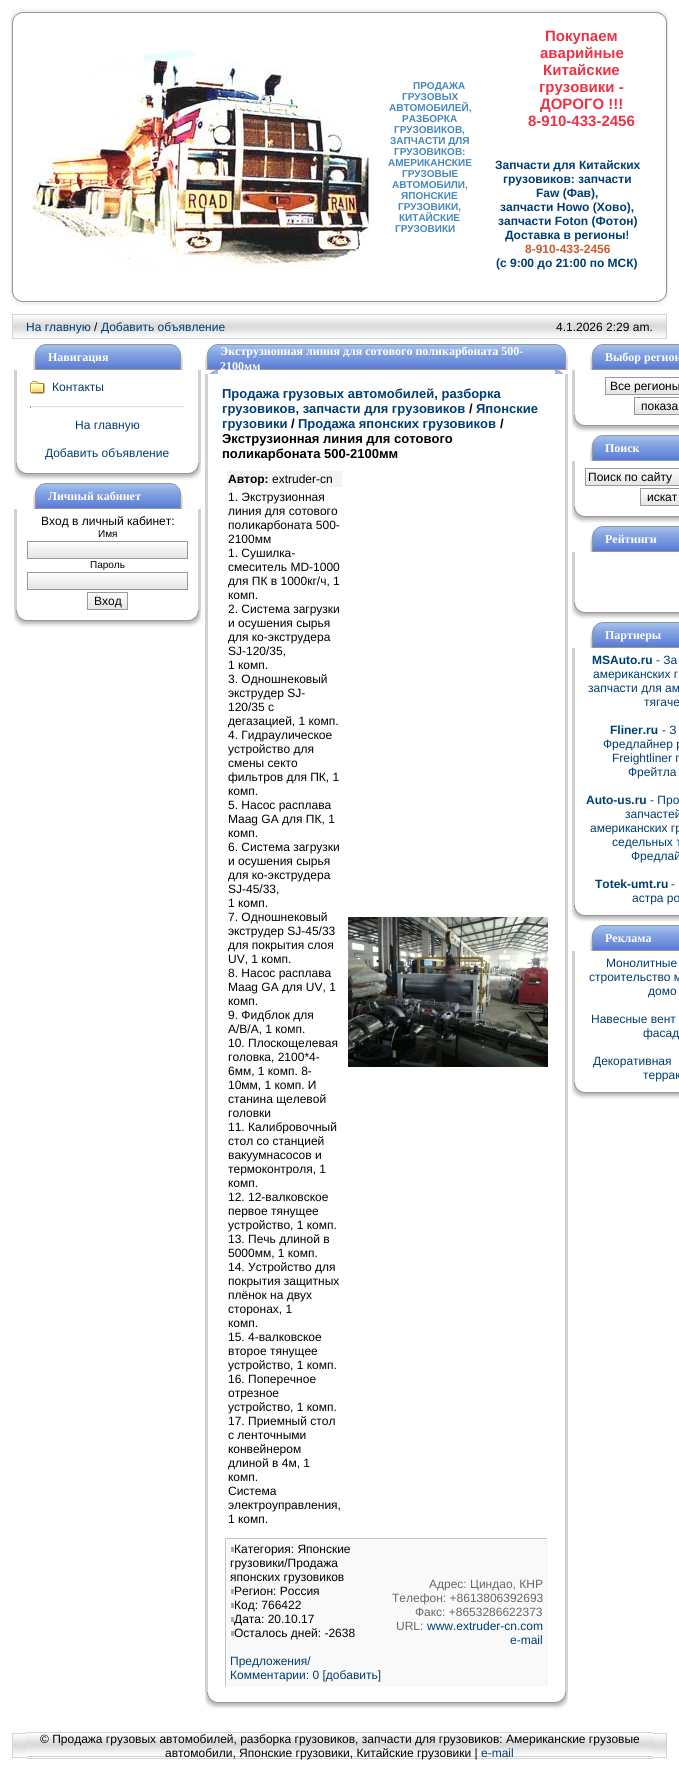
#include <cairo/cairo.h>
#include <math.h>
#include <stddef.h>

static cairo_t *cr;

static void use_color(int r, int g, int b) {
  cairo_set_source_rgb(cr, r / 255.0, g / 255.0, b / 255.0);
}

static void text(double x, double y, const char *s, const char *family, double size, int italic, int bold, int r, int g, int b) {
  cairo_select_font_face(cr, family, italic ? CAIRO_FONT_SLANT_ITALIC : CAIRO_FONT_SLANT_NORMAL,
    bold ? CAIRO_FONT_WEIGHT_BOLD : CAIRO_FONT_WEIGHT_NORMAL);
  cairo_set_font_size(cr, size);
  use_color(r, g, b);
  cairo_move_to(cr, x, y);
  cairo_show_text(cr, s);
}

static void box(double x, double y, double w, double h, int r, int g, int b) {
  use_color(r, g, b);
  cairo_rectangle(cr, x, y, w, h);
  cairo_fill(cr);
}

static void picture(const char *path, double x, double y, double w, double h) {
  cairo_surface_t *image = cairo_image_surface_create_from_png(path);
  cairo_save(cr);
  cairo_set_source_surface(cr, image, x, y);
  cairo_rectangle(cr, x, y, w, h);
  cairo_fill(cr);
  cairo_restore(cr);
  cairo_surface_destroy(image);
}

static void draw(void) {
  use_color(255, 255, 255);
  cairo_paint(cr);
  picture("img_01.png", 11, 8, 21, 19);
  picture("img_02.png", 32, 8, 615, 5);
  picture("img_03.png", 647, 8, 21, 19);
  picture("img_04.png", 11, 27, 2, 260);
  picture("img_05.png", 32, 45, 338, 224);
  picture("img_06.png", 666, 27, 2, 260);
  picture("img_07.png", 11, 287, 21, 19);
  picture("img_08.png", 32, 301, 615, 5);
  picture("img_09.png", 647, 287, 21, 19);
  picture("img_10.png", 12, 314, 14, 25);
  picture("img_11.png", 26, 314, 376, 25);
  picture("img_12.png", 402, 314, 251, 25);
  picture("img_13.png", 653, 314, 14, 25);
  picture("img_14.png", 33, 344, 13, 26);
  picture("img_15.png", 46, 344, 124, 26);
  picture("img_16.png", 170, 344, 13, 26);
  box(14, 370, 3, 93, 209, 209, 209);
  picture("img_17.png", 30, 381, 15, 13);
  box(30, 406, 155, 1, 226, 226, 226);
  box(184, 406, 1, 2, 238, 238, 238);
  box(30, 407, 155, 1, 249, 249, 249);
  box(30, 406, 1, 2, 159, 159, 159);
  box(198, 370, 3, 93, 209, 209, 209);
  picture("img_18.png", 14, 463, 13, 17);
  picture("img_19.png", 27, 473, 161, 7);
  picture("img_20.png", 188, 463, 13, 17);
  picture("img_14.png", 33, 483, 13, 26);
  picture("img_15.png", 46, 483, 124, 26);
  picture("img_16.png", 170, 483, 13, 26);
  box(14, 509, 3, 101, 209, 209, 209);
  picture("img_21.png", 28, 542, 159, 16);
  cairo_rectangle(cr, 27.5, 541.5, 160, 17);
  use_color(153, 153, 153);
  cairo_set_line_width(cr, 1);
  cairo_stroke(cr);
  picture("img_21.png", 28, 573, 159, 16);
  cairo_rectangle(cr, 27.5, 572.5, 160, 17);
  cairo_stroke(cr);
  picture("img_22.png", 88, 593, 39, 16);
  cairo_rectangle(cr, 87.5, 592.5, 40, 17);
  cairo_stroke(cr);
  box(198, 509, 3, 101, 209, 209, 209);
  picture("img_18.png", 14, 610, 13, 17);
  picture("img_19.png", 27, 620, 161, 7);
  picture("img_20.png", 188, 610, 13, 17);
  picture("img_23.png", 205, 344, 13, 30);
  picture("img_24.png", 218, 344, 337, 26);
  picture("img_25.png", 555, 344, 13, 30);
  box(205, 374, 3, 1318, 209, 209, 209);
  box(227, 471, 115, 16, 243, 243, 243);
  picture("img_26.png", 348, 917, 200, 150);
  box(226, 1539, 321, 146, 249, 249, 249);
  box(225, 1538, 323, 1, 196, 196, 196);
  box(225, 1685, 161, 1, 246, 246, 246);
  box(225, 1538, 1, 148, 196, 196, 196);
  box(231, 1547, 3, 5, 170, 170, 170);
  box(231, 1589, 3, 5, 170, 170, 170);
  box(231, 1603, 3, 5, 170, 170, 170);
  box(231, 1617, 3, 5, 170, 170, 170);
  box(231, 1631, 3, 5, 170, 170, 170);
  box(547, 1538, 1, 148, 246, 246, 246);
  box(386, 1685, 162, 1, 246, 246, 246);
  box(565, 374, 3, 1318, 209, 209, 209);
  picture("img_18.png", 205, 1692, 13, 17);
  picture("img_27.png", 218, 1702, 337, 7);
  picture("img_20.png", 555, 1692, 13, 17);
  picture("img_14.png", 590, 344, 13, 26);
  picture("img_28.png", 603, 344, 76, 26);
  box(572, 370, 3, 45, 209, 209, 209);
  picture("img_29.png", 606, 378, 73, 16);
  cairo_rectangle(cr, 605.5, 377.5, 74, 17);
  use_color(153, 153, 153);
  cairo_stroke(cr);
  picture("img_30.png", 635, 398, 44, 16);
  cairo_rectangle(cr, 634.5, 397.5, 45, 17);
  cairo_stroke(cr);
  picture("img_18.png", 572, 415, 13, 17);
  picture("img_31.png", 585, 425, 94, 7);
  picture("img_14.png", 590, 435, 13, 26);
  picture("img_28.png", 603, 435, 76, 26);
  box(572, 461, 3, 45, 209, 209, 209);
  picture("img_32.png", 586, 469, 93, 16);
  cairo_rectangle(cr, 585.5, 468.5, 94, 17);
  use_color(153, 153, 153);
  cairo_stroke(cr);
  picture("img_33.png", 641, 489, 38, 16);
  cairo_rectangle(cr, 640.5, 488.5, 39, 17);
  cairo_stroke(cr);
  picture("img_18.png", 572, 506, 13, 17);
  picture("img_31.png", 585, 516, 94, 7);
  picture("img_14.png", 590, 526, 13, 26);
  picture("img_28.png", 603, 526, 76, 26);
  box(572, 552, 3, 50, 209, 209, 209);
  picture("img_18.png", 572, 602, 13, 17);
  picture("img_31.png", 585, 612, 94, 7);
  picture("img_14.png", 590, 622, 13, 26);
  picture("img_28.png", 603, 622, 76, 26);
  box(572, 648, 3, 257, 209, 209, 209);
  picture("img_18.png", 572, 905, 13, 17);
  picture("img_31.png", 585, 915, 94, 7);
  picture("img_14.png", 590, 925, 13, 26);
  picture("img_28.png", 603, 925, 76, 26);
  box(572, 951, 3, 131, 209, 209, 209);
  picture("img_18.png", 572, 1082, 13, 17);
  picture("img_31.png", 585, 1092, 94, 7);
  picture("img_10.png", 12, 1733, 14, 25);
  picture("img_34.png", 26, 1732, 627, 27);
  picture("img_13.png", 653, 1733, 14, 25);
  text(413, 89, "ПРОДАЖА", "Liberation Sans", 10, 0, 1, 68, 135, 187);
  text(402, 100, "ГРУЗОВЫХ", "Liberation Sans", 10, 0, 1, 68, 135, 187);
  text(389, 111, "АВТОМОБИЛЕЙ,", "Liberation Sans", 10, 0, 1, 68, 135, 187);
  text(402, 122, "РАЗБОРКА", "Liberation Sans", 10, 0, 1, 68, 135, 187);
  text(394, 133, "ГРУЗОВИКОВ,", "Liberation Sans", 10, 0, 1, 68, 135, 187);
  text(390, 144, "ЗАПЧАСТИ ДЛЯ", "Liberation Sans", 10, 0, 1, 68, 135, 187);
  text(394, 155, "ГРУЗОВИКОВ:", "Liberation Sans", 10, 0, 1, 68, 135, 187);
  text(388, 166, "АМЕРИКАНСКИЕ", "Liberation Sans", 10, 0, 1, 68, 135, 187);
  text(402, 177, "ГРУЗОВЫЕ", "Liberation Sans", 10, 0, 1, 68, 135, 187);
  text(392, 188, "АВТОМОБИЛИ,", "Liberation Sans", 10, 0, 1, 68, 135, 187);
  text(401, 199, "ЯПОНСКИЕ", "Liberation Sans", 10, 0, 1, 68, 135, 187);
  text(398, 210, "ГРУЗОВИКИ,", "Liberation Sans", 10, 0, 1, 68, 135, 187);
  text(399, 221, "КИТАЙСКИЕ", "Liberation Sans", 10, 0, 1, 68, 135, 187);
  text(395, 232, "ГРУЗОВИКИ", "Liberation Sans", 10, 0, 1, 68, 135, 187);
  text(545, 41, "Покупаем", "Liberation Sans", 15, 0, 1, 235, 51, 69);
  text(540, 58, "аварийные", "Liberation Sans", 15, 0, 1, 235, 51, 69);
  text(543, 75, "Китайские", "Liberation Sans", 15, 0, 1, 235, 51, 69);
  text(539, 92, "грузовики -", "Liberation Sans", 15, 0, 1, 235, 51, 69);
  text(540, 109, "ДОРОГО !!!", "Liberation Sans", 15, 0, 1, 235, 51, 69);
  text(528, 126, "8-910-433-2456", "Liberation Sans", 15, 0, 1, 235, 51, 69);
  text(495, 169, "Запчасти для Китайских", "Liberation Sans", 12, 0, 1, 0, 61, 113);
  text(503, 183, "грузовиков: запчасти", "Liberation Sans", 12, 0, 1, 0, 61, 113);
  text(536, 197, "Faw (Фав),", "Liberation Sans", 12, 0, 1, 0, 61, 113);
  text(500, 211, "запчасти Howo (Хово),", "Liberation Sans", 12, 0, 1, 0, 61, 113);
  text(498, 225, "запчасти Foton (Фотон)", "Liberation Sans", 12, 0, 1, 0, 61, 113);
  text(505, 239, "Доставка в регионы!", "Liberation Sans", 12, 0, 1, 0, 61, 113);
  text(525, 253, "8-910-433-2456", "Liberation Sans", 12, 0, 1, 205, 89, 45);
  text(496, 267, "(с 9:00 до 21:00 по МСК)", "Liberation Sans", 12, 0, 1, 0, 61, 113);
  text(26, 331, "На главную", "Liberation Sans", 12, 0, 0, 0, 61, 113);
  text(94, 331, "/", "Liberation Sans", 12, 0, 0, 0, 0, 0);
  text(101, 331, "Добавить объявление", "Liberation Sans", 12, 0, 0, 0, 61, 113);
  text(556, 331, "4.1.2026 2:29 am.", "Liberation Sans", 12, 0, 0, 0, 0, 0);
  text(48, 361, "Навигация", "Liberation Serif", 12, 0, 1, 255, 255, 255);
  text(52, 391, "Контакты", "Liberation Sans", 12, 0, 0, 0, 61, 113);
  text(75, 429, "На главную", "Liberation Sans", 12, 0, 0, 0, 61, 113);
  text(45, 457, "Добавить объявление", "Liberation Sans", 12, 0, 0, 0, 61, 113);
  text(48, 500, "Личный кабинет", "Liberation Serif", 12, 0, 1, 255, 255, 255);
  text(41, 525, "Вход в личный кабинет:", "Liberation Sans", 12, 0, 0, 0, 0, 0);
  text(98, 537, "Имя", "Liberation Sans", 10, 0, 0, 0, 0, 0);
  text(90, 568, "Пароль", "Liberation Sans", 10, 0, 0, 0, 0, 0);
  text(94, 605, "Вход", "Liberation Sans", 12, 0, 0, 0, 0, 0);
  text(220, 355, "Экструзионная линия для сотового поликарбоната 500-", "Liberation Serif", 12, 0, 1, 255, 255, 255);
  text(220, 370, "2100мм", "Liberation Serif", 12, 0, 1, 255, 255, 255);
  text(222, 398, "Продажа грузовых автомобилей, разборка", "Liberation Sans", 13, 0, 1, 0, 61, 113);
  text(222, 413, "грузовиков, запчасти для грузовиков", "Liberation Sans", 13, 0, 1, 0, 61, 113);
  text(469, 413, "/", "Liberation Sans", 13, 0, 1, 0, 0, 0);
  text(476, 413, "Японские", "Liberation Sans", 13, 0, 1, 0, 61, 113);
  text(222, 428, "грузовики", "Liberation Sans", 13, 0, 1, 0, 61, 113);
  text(291, 428, "/", "Liberation Sans", 13, 0, 1, 0, 0, 0);
  text(298, 428, "Продажа японских грузовиков", "Liberation Sans", 13, 0, 1, 0, 61, 113);
  text(500, 428, "/", "Liberation Sans", 13, 0, 1, 0, 0, 0);
  text(222, 443, "Экструзионная линия для сотового", "Liberation Sans", 13, 0, 1, 0, 0, 0);
  text(222, 458, "поликарбоната 500-2100мм", "Liberation Sans", 13, 0, 1, 0, 0, 0);
  text(228, 483, "Автор:", "Liberation Sans", 12, 0, 1, 0, 0, 0);
  text(272, 483, "extruder-cn", "Liberation Sans", 12, 0, 0, 0, 0, 0);
  text(228, 501, "1. Экструзионная", "Liberation Sans", 12, 0, 0, 0, 0, 0);
  text(228, 515, "линия для сотового", "Liberation Sans", 12, 0, 0, 0, 0, 0);
  text(228, 529, "поликарбоната 500-", "Liberation Sans", 12, 0, 0, 0, 0, 0);
  text(228, 543, "2100мм", "Liberation Sans", 12, 0, 0, 0, 0, 0);
  text(228, 557, "1. Сушилка-", "Liberation Sans", 12, 0, 0, 0, 0, 0);
  text(228, 571, "смеситель MD-1000", "Liberation Sans", 12, 0, 0, 0, 0, 0);
  text(228, 585, "для ПК в 1000кг/ч, 1", "Liberation Sans", 12, 0, 0, 0, 0, 0);
  text(228, 599, "комп.", "Liberation Sans", 12, 0, 0, 0, 0, 0);
  text(228, 613, "2. Система загрузки", "Liberation Sans", 12, 0, 0, 0, 0, 0);
  text(228, 627, "и осушения сырья", "Liberation Sans", 12, 0, 0, 0, 0, 0);
  text(228, 641, "для ко-экструдера", "Liberation Sans", 12, 0, 0, 0, 0, 0);
  text(228, 655, "SJ-120/35,", "Liberation Sans", 12, 0, 0, 0, 0, 0);
  text(228, 669, "1 комп.", "Liberation Sans", 12, 0, 0, 0, 0, 0);
  text(228, 683, "3. Одношнековый", "Liberation Sans", 12, 0, 0, 0, 0, 0);
  text(228, 697, "экструдер SJ-", "Liberation Sans", 12, 0, 0, 0, 0, 0);
  text(228, 711, "120/35 с", "Liberation Sans", 12, 0, 0, 0, 0, 0);
  text(228, 725, "дегазацией, 1 комп.", "Liberation Sans", 12, 0, 0, 0, 0, 0);
  text(228, 739, "4. Гидраулическое", "Liberation Sans", 12, 0, 0, 0, 0, 0);
  text(228, 753, "устройство для", "Liberation Sans", 12, 0, 0, 0, 0, 0);
  text(228, 767, "смены секто", "Liberation Sans", 12, 0, 0, 0, 0, 0);
  text(228, 781, "фильтров для ПК, 1", "Liberation Sans", 12, 0, 0, 0, 0, 0);
  text(228, 795, "комп.", "Liberation Sans", 12, 0, 0, 0, 0, 0);
  text(228, 809, "5. Насос расплава", "Liberation Sans", 12, 0, 0, 0, 0, 0);
  text(228, 823, "Maag GA для ПК, 1", "Liberation Sans", 12, 0, 0, 0, 0, 0);
  text(228, 837, "комп.", "Liberation Sans", 12, 0, 0, 0, 0, 0);
  text(228, 851, "6. Система загрузки", "Liberation Sans", 12, 0, 0, 0, 0, 0);
  text(228, 865, "и осушения сырья", "Liberation Sans", 12, 0, 0, 0, 0, 0);
  text(228, 879, "для ко-экструдера", "Liberation Sans", 12, 0, 0, 0, 0, 0);
  text(228, 893, "SJ-45/33,", "Liberation Sans", 12, 0, 0, 0, 0, 0);
  text(228, 907, "1 комп.", "Liberation Sans", 12, 0, 0, 0, 0, 0);
  text(228, 921, "7. Одношнековый", "Liberation Sans", 12, 0, 0, 0, 0, 0);
  text(228, 935, "экструдер SJ-45/33", "Liberation Sans", 12, 0, 0, 0, 0, 0);
  text(228, 949, "для покрытия слоя", "Liberation Sans", 12, 0, 0, 0, 0, 0);
  text(228, 963, "UV, 1 комп.", "Liberation Sans", 12, 0, 0, 0, 0, 0);
  text(228, 977, "8. Насос расплава", "Liberation Sans", 12, 0, 0, 0, 0, 0);
  text(228, 991, "Maag GA для UV, 1", "Liberation Sans", 12, 0, 0, 0, 0, 0);
  text(228, 1005, "комп.", "Liberation Sans", 12, 0, 0, 0, 0, 0);
  text(228, 1019, "9. Фидблок для", "Liberation Sans", 12, 0, 0, 0, 0, 0);
  text(228, 1033, "A/B/A, 1 комп.", "Liberation Sans", 12, 0, 0, 0, 0, 0);
  text(228, 1047, "10. Плоскощелевая", "Liberation Sans", 12, 0, 0, 0, 0, 0);
  text(228, 1061, "головка, 2100*4-", "Liberation Sans", 12, 0, 0, 0, 0, 0);
  text(228, 1075, "6мм, 1 комп. 8-", "Liberation Sans", 12, 0, 0, 0, 0, 0);
  text(228, 1089, "10мм, 1 комп. И", "Liberation Sans", 12, 0, 0, 0, 0, 0);
  text(228, 1103, "станина щелевой", "Liberation Sans", 12, 0, 0, 0, 0, 0);
  text(228, 1117, "головки", "Liberation Sans", 12, 0, 0, 0, 0, 0);
  text(228, 1131, "11. Калибровочный", "Liberation Sans", 12, 0, 0, 0, 0, 0);
  text(228, 1145, "стол со станцией", "Liberation Sans", 12, 0, 0, 0, 0, 0);
  text(228, 1159, "вакуумнасосов и", "Liberation Sans", 12, 0, 0, 0, 0, 0);
  text(228, 1173, "термоконтроля, 1", "Liberation Sans", 12, 0, 0, 0, 0, 0);
  text(228, 1187, "комп.", "Liberation Sans", 12, 0, 0, 0, 0, 0);
  text(228, 1201, "12. 12-валковское", "Liberation Sans", 12, 0, 0, 0, 0, 0);
  text(228, 1215, "первое тянущее", "Liberation Sans", 12, 0, 0, 0, 0, 0);
  text(228, 1229, "устройство, 1 комп.", "Liberation Sans", 12, 0, 0, 0, 0, 0);
  text(228, 1243, "13. Печь длиной в", "Liberation Sans", 12, 0, 0, 0, 0, 0);
  text(228, 1257, "5000мм, 1 комп.", "Liberation Sans", 12, 0, 0, 0, 0, 0);
  text(228, 1271, "14. Устройство для", "Liberation Sans", 12, 0, 0, 0, 0, 0);
  text(228, 1285, "покрытия защитных", "Liberation Sans", 12, 0, 0, 0, 0, 0);
  text(228, 1299, "плёнок на двух", "Liberation Sans", 12, 0, 0, 0, 0, 0);
  text(228, 1313, "сторонах, 1", "Liberation Sans", 12, 0, 0, 0, 0, 0);
  text(228, 1327, "комп.", "Liberation Sans", 12, 0, 0, 0, 0, 0);
  text(228, 1341, "15. 4-валковское", "Liberation Sans", 12, 0, 0, 0, 0, 0);
  text(228, 1355, "второе тянущее", "Liberation Sans", 12, 0, 0, 0, 0, 0);
  text(228, 1369, "устройство, 1 комп.", "Liberation Sans", 12, 0, 0, 0, 0, 0);
  text(228, 1383, "16. Поперечное", "Liberation Sans", 12, 0, 0, 0, 0, 0);
  text(228, 1397, "отрезное", "Liberation Sans", 12, 0, 0, 0, 0, 0);
  text(228, 1411, "устройство, 1 комп.", "Liberation Sans", 12, 0, 0, 0, 0, 0);
  text(228, 1425, "17. Приемный стол", "Liberation Sans", 12, 0, 0, 0, 0, 0);
  text(228, 1439, "с ленточными", "Liberation Sans", 12, 0, 0, 0, 0, 0);
  text(228, 1453, "конвейнером", "Liberation Sans", 12, 0, 0, 0, 0, 0);
  text(228, 1467, "длиной в 4м, 1", "Liberation Sans", 12, 0, 0, 0, 0, 0);
  text(228, 1481, "комп.", "Liberation Sans", 12, 0, 0, 0, 0, 0);
  text(228, 1495, "Система", "Liberation Sans", 12, 0, 0, 0, 0, 0);
  text(228, 1509, "электроуправления,", "Liberation Sans", 12, 0, 0, 0, 0, 0);
  text(228, 1523, "1 комп.", "Liberation Sans", 12, 0, 0, 0, 0, 0);
  text(234, 1553, "Категория: Японские", "Liberation Sans", 12, 0, 0, 0, 0, 0);
  text(230, 1567, "грузовики/Продажа", "Liberation Sans", 12, 0, 0, 0, 0, 0);
  text(230, 1581, "японских грузовиков", "Liberation Sans", 12, 0, 0, 0, 0, 0);
  text(234, 1595, "Регион: Россия", "Liberation Sans", 12, 0, 0, 0, 0, 0);
  text(234, 1609, "Код: 766422", "Liberation Sans", 12, 0, 0, 0, 0, 0);
  text(234, 1623, "Дата: 20.10.17", "Liberation Sans", 12, 0, 0, 0, 0, 0);
  text(234, 1637, "Осталось дней: -2638", "Liberation Sans", 12, 0, 0, 0, 0, 0);
  text(230, 1665, "Предложения/", "Liberation Sans", 12, 0, 0, 0, 61, 113);
  text(230, 1679, "Комментарии: 0 [добавить]", "Liberation Sans", 12, 0, 0, 0, 61, 113);
  text(429, 1588, "Адрес: Циндао, КНР", "Liberation Sans", 12, 0, 0, 103, 103, 103);
  text(392, 1602, "Телефон: +8613806392693", "Liberation Sans", 12, 0, 0, 103, 103, 103);
  text(415, 1616, "Факс: +8653286622373", "Liberation Sans", 12, 0, 0, 103, 103, 103);
  text(396, 1630, "URL:", "Liberation Sans", 12, 0, 0, 103, 103, 103);
  text(427, 1630, "www.extruder-cn.com", "Liberation Sans", 12, 0, 0, 0, 61, 113);
  text(510, 1644, "e-mail", "Liberation Sans", 12, 0, 0, 0, 61, 113);
  text(605, 361, "Выбор регион", "Liberation Serif", 12, 0, 1, 255, 255, 255);
  text(610, 390, "Все регионы", "Liberation Sans", 12, 0, 0, 0, 0, 0);
  text(641, 410, "показа", "Liberation Sans", 12, 0, 0, 0, 0, 0);
  text(605, 452, "Поиск", "Liberation Serif", 12, 0, 1, 255, 255, 255);
  text(588, 481, "Поиск по сайту", "Liberation Sans", 12, 0, 0, 0, 0, 0);
  text(647, 501, "искат", "Liberation Sans", 12, 0, 0, 0, 0, 0);
  text(605, 543, "Рейтинги", "Liberation Serif", 12, 0, 1, 255, 255, 255);
  text(605, 639, "Партнеры", "Liberation Serif", 12, 0, 1, 255, 255, 255);
  text(592, 664, "MSAuto.ru", "Liberation Sans", 12, 0, 1, 0, 61, 113);
  text(656, 664, "- За", "Liberation Sans", 12, 0, 0, 0, 61, 113);
  text(593, 678, "американских г", "Liberation Sans", 12, 0, 0, 0, 61, 113);
  text(588, 692, "запчасти для ам", "Liberation Sans", 12, 0, 0, 0, 61, 113);
  text(644, 706, "тягаче", "Liberation Sans", 12, 0, 0, 0, 61, 113);
  text(610, 734, "Fliner.ru", "Liberation Sans", 12, 0, 1, 0, 61, 113);
  text(662, 734, "- З", "Liberation Sans", 12, 0, 0, 0, 61, 113);
  text(603, 748, "Фредлайнер р", "Liberation Sans", 12, 0, 0, 0, 61, 113);
  text(612, 762, "Freightliner п", "Liberation Sans", 12, 0, 0, 0, 61, 113);
  text(628, 776, "Фрейтла", "Liberation Sans", 12, 0, 0, 0, 61, 113);
  text(586, 804, "Auto-us.ru", "Liberation Sans", 12, 0, 1, 0, 61, 113);
  text(650, 804, "- Про", "Liberation Sans", 12, 0, 0, 0, 61, 113);
  text(625, 818, "запчастей", "Liberation Sans", 12, 0, 0, 0, 61, 113);
  text(590, 832, "американских гр", "Liberation Sans", 12, 0, 0, 0, 61, 113);
  text(612, 846, "седельных т", "Liberation Sans", 12, 0, 0, 0, 61, 113);
  text(631, 860, "Фредлай", "Liberation Sans", 12, 0, 0, 0, 61, 113);
  text(595, 888, "Totek-umt.ru", "Liberation Sans", 12, 0, 1, 0, 61, 113);
  text(671, 888, "-", "Liberation Sans", 12, 0, 0, 0, 61, 113);
  text(632, 902, "астра ро", "Liberation Sans", 12, 0, 0, 0, 61, 113);
  text(605, 942, "Реклама", "Liberation Serif", 12, 0, 1, 255, 255, 255);
  text(606, 967, "Монолитные", "Liberation Sans", 12, 0, 0, 0, 61, 113);
  text(589, 981, "строительство м", "Liberation Sans", 12, 0, 0, 0, 61, 113);
  text(648, 995, "домо", "Liberation Sans", 12, 0, 0, 0, 61, 113);
  text(591, 1023, "Навесные вент", "Liberation Sans", 12, 0, 0, 0, 61, 113);
  text(643, 1037, "фасад", "Liberation Sans", 12, 0, 0, 0, 61, 113);
  text(593, 1065, "Декоративная", "Liberation Sans", 12, 0, 0, 0, 61, 113);
  text(643, 1079, "террак", "Liberation Sans", 12, 0, 0, 0, 61, 113);
  text(40, 1743, "© Продажа грузовых автомобилей, разборка грузовиков, запчасти для грузовиков: Американские грузовые", "Liberation Sans", 12, 0, 0, 0, 0, 0);
  text(165, 1757, "автомобили, Японские грузовики, Китайские грузовики |", "Liberation Sans", 12, 0, 0, 0, 0, 0);
  text(481, 1757, "e-mail", "Liberation Sans", 12, 0, 0, 0, 61, 113);
}

int main(void) {
  cairo_surface_t *surface = cairo_image_surface_create(CAIRO_FORMAT_RGB24, 679, 1792);
  cr = cairo_create(surface);
  cairo_font_options_t *options = cairo_font_options_create();
  cairo_font_options_set_hint_metrics(options, CAIRO_HINT_METRICS_OFF);
  cairo_font_options_set_hint_style(options, CAIRO_HINT_STYLE_NONE);
  cairo_set_font_options(cr, options);
  cairo_set_miter_limit(cr, 4);
  draw();
  cairo_surface_write_to_png(surface, "out.png");
  cairo_font_options_destroy(options);
  cairo_destroy(cr);
  cairo_surface_destroy(surface);
  return 0;
}
